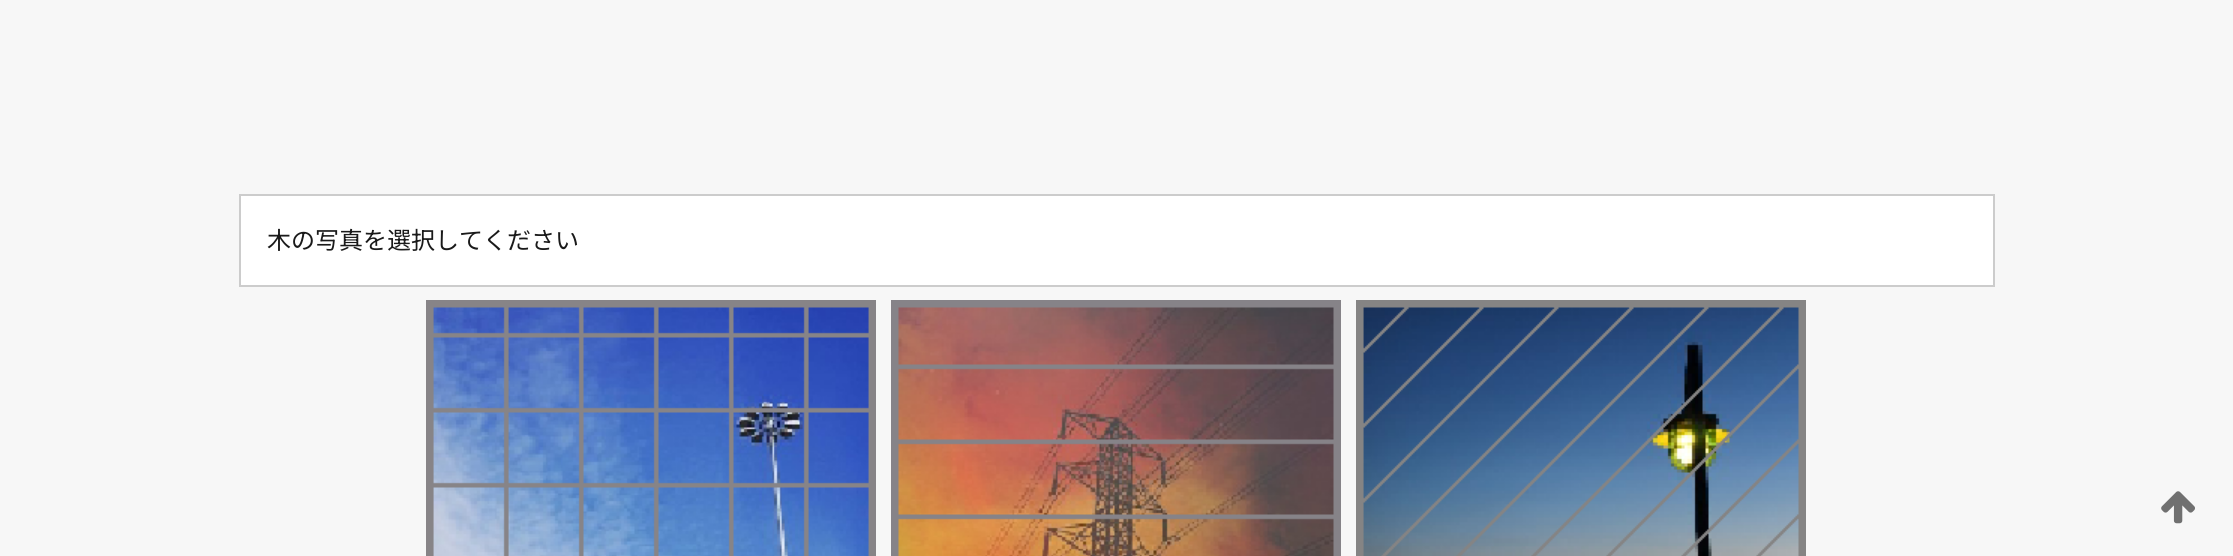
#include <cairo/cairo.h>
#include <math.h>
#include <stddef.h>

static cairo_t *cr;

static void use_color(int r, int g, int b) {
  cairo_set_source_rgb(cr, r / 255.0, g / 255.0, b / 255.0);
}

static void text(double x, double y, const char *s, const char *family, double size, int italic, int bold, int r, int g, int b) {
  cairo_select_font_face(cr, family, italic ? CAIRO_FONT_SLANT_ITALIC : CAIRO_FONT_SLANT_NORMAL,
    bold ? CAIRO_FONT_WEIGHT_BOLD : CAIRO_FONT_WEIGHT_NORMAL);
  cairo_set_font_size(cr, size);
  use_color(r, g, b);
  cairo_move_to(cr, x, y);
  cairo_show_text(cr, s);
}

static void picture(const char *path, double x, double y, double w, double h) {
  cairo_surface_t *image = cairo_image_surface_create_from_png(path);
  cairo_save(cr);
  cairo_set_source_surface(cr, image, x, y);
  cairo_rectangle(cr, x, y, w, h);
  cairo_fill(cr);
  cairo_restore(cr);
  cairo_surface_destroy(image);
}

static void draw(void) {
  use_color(247, 247, 247);
  cairo_paint(cr);
  use_color(255, 255, 255);
  cairo_rectangle(cr, 240, 195, 1754, 91);
  cairo_fill_preserve(cr);
  use_color(204, 204, 204);
  cairo_stroke(cr);
  picture("img_01.png", 426, 300, 450, 256);
  picture("img_02.png", 891, 300, 450, 256);
  picture("img_03.png", 1356, 300, 450, 256);
  picture("img_04.png", 2161, 491, 34, 33);
  text(267, 249, "木の写真を選択してください", "Noto Sans SC Thin", 24, 0, 0, 26, 26, 26);
}

int main(void) {
  cairo_surface_t *surface = cairo_image_surface_create(CAIRO_FORMAT_RGB24, 2233, 556);
  cr = cairo_create(surface);
  cairo_font_options_t *options = cairo_font_options_create();
  cairo_font_options_set_hint_metrics(options, CAIRO_HINT_METRICS_OFF);
  cairo_font_options_set_hint_style(options, CAIRO_HINT_STYLE_NONE);
  cairo_set_font_options(cr, options);
  cairo_set_miter_limit(cr, 4);
  draw();
  cairo_surface_write_to_png(surface, "out.png");
  cairo_font_options_destroy(options);
  cairo_destroy(cr);
  cairo_surface_destroy(surface);
  return 0;
}
